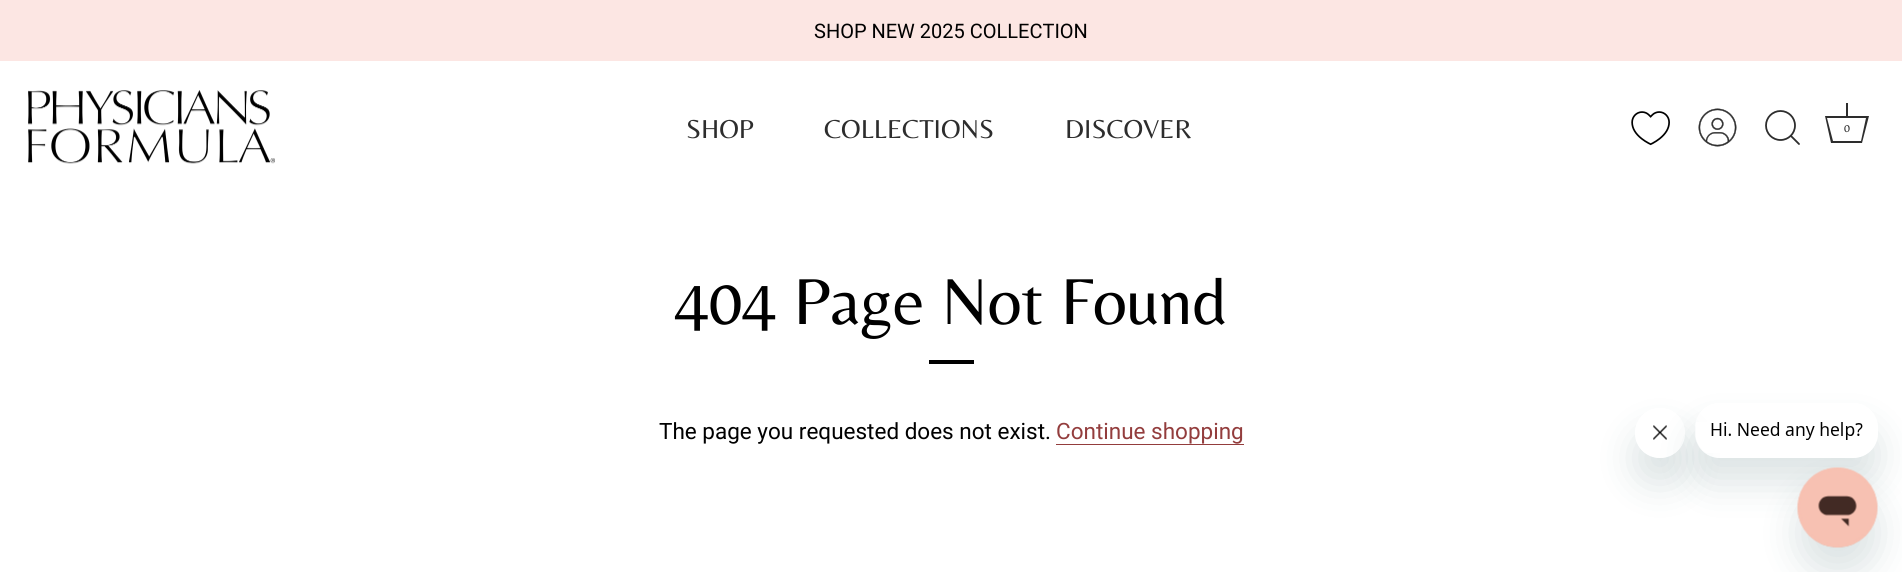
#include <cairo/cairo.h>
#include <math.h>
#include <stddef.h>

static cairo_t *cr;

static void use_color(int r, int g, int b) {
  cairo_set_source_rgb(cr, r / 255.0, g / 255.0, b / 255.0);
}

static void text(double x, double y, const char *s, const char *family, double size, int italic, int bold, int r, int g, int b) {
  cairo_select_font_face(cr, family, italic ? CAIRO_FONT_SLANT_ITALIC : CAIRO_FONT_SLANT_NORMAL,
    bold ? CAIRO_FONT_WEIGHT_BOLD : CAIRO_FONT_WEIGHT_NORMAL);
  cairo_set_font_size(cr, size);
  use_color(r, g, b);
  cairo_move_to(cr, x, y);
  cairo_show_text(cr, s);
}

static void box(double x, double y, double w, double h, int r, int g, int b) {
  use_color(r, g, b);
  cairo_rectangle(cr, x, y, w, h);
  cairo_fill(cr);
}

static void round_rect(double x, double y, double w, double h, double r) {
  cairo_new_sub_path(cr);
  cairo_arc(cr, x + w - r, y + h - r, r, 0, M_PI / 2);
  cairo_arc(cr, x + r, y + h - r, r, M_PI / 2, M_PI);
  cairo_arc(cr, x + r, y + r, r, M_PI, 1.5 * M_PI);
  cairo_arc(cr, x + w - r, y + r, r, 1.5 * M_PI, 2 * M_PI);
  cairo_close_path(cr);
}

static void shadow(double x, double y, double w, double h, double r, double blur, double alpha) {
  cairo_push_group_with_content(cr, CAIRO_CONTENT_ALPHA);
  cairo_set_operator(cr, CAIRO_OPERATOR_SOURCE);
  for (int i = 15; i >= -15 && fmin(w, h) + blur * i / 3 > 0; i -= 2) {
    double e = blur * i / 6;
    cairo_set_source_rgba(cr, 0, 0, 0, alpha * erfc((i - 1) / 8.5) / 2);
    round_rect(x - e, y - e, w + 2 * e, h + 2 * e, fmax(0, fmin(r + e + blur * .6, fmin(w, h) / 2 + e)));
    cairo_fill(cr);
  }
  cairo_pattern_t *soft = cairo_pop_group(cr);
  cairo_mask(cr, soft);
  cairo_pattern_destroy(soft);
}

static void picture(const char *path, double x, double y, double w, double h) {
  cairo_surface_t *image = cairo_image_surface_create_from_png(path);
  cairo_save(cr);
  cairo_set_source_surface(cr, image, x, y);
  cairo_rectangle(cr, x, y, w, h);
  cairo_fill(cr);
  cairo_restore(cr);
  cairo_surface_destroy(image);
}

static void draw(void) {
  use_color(255, 255, 255);
  cairo_paint(cr);
  box(0, 0, 1902, 61, 252, 230, 227);
  picture("img_01.png", 28, 90, 247, 74);
  picture("img_02.png", 1631, 111, 39, 35);
  picture("img_03.png", 1698, 108, 39, 39);
  cairo_arc(cr, 1780.5, 125.5, 14.5, 0, 2 * M_PI);
  use_color(45, 45, 45);
  cairo_set_line_width(cr, 1.8);
  cairo_stroke(cr);
  cairo_new_path(cr);
  cairo_move_to(cr, 1799, 144);
  cairo_line_to(cr, 1791, 136);
  cairo_set_line_cap(cr, CAIRO_LINE_CAP_ROUND);
  cairo_set_line_join(cr, CAIRO_LINE_JOIN_ROUND);
  cairo_stroke(cr);
  box(1846, 103, 2, 13, 45, 45, 45);
  cairo_new_path(cr);
  cairo_move_to(cr, 1866, 118);
  cairo_line_to(cr, 1861, 141);
  cairo_line_to(cr, 1833, 141);
  cairo_line_to(cr, 1827, 118);
  cairo_line_to(cr, 1866, 118);
  cairo_move_to(cr, 1869, 116);
  cairo_line_to(cr, 1825, 116);
  cairo_line_to(cr, 1831, 143);
  cairo_line_to(cr, 1862, 143);
  cairo_close_path(cr);
  cairo_fill(cr);
  box(929, 360, 45, 4, 0, 0, 0);
  box(1056, 444, 188, 1, 147, 61, 61);
  cairo_save(cr);
  cairo_set_fill_rule(cr, CAIRO_FILL_RULE_EVEN_ODD);
  cairo_new_path(cr);
  cairo_move_to(cr, 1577, 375);
  cairo_line_to(cr, 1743, 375);
  cairo_line_to(cr, 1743, 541);
  cairo_line_to(cr, 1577, 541);
  cairo_close_path(cr);
  cairo_move_to(cr, 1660, 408);
  cairo_curve_to(cr, 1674, 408, 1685, 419, 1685, 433);
  cairo_curve_to(cr, 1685, 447, 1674, 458, 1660, 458);
  cairo_curve_to(cr, 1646, 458, 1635, 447, 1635, 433);
  cairo_curve_to(cr, 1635, 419, 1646, 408, 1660, 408);
  cairo_close_path(cr);
  cairo_clip(cr);
  use_color(23, 73, 77);
  shadow(1635, 433, 50, 50, 25, 19, 0.15);
  cairo_restore(cr);
  picture("img_05.png", 1653, 425, 14, 33);
  cairo_save(cr);
  cairo_set_fill_rule(cr, CAIRO_FILL_RULE_EVEN_ODD);
  cairo_new_path(cr);
  cairo_move_to(cr, 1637, 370);
  cairo_line_to(cr, 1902, 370);
  cairo_line_to(cr, 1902, 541);
  cairo_line_to(cr, 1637, 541);
  cairo_close_path(cr);
  cairo_move_to(cr, 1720, 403);
  cairo_line_to(cr, 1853, 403);
  cairo_curve_to(cr, 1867, 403, 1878, 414, 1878, 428);
  cairo_line_to(cr, 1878, 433);
  cairo_curve_to(cr, 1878, 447, 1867, 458, 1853, 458);
  cairo_line_to(cr, 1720, 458);
  cairo_curve_to(cr, 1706, 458, 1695, 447, 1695, 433);
  cairo_line_to(cr, 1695, 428);
  cairo_curve_to(cr, 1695, 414, 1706, 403, 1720, 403);
  cairo_close_path(cr);
  cairo_clip(cr);
  use_color(23, 73, 77);
  shadow(1695, 428, 183, 55, 25, 19, 0.15);
  cairo_restore(cr);
  picture("img_04.png", 1696, 422, 167, 31);
  use_color(23, 73, 77);
  shadow(1798, 493, 80, 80, 40, 19, 0.15);
  picture("img_06.png", 1797, 467, 81, 81);
  text(814, 38, "SHOP NEW 2025 COLLECTION", "Roboto", 20, 0, 0, 0, 0, 0);
  text(686, 138, "SHOP", "Belleza", 27, 0, 0, 45, 45, 45);
  text(824, 138, "COLLECTIONS", "Belleza", 27, 0, 0, 45, 45, 45);
  text(1065, 138, "DISCOVER", "Belleza", 27, 0, 0, 45, 45, 45);
  text(1844, 132, "0", "Belleza", 12, 0, 0, 45, 45, 45);
  text(675, 324, "404 Page Not Found", "Belleza", 67.5, 0, 0, 0, 0, 0);
  text(659, 439, "The page you requested does not exist.", "Roboto", 22.5, 0, 0, 0, 0, 0);
  text(1056, 439, "Continue shopping", "Roboto", 22.5, 0, 0, 147, 61, 61);
}

int main(void) {
  cairo_surface_t *surface = cairo_image_surface_create(CAIRO_FORMAT_RGB24, 1902, 572);
  cr = cairo_create(surface);
  cairo_font_options_t *options = cairo_font_options_create();
  cairo_font_options_set_hint_metrics(options, CAIRO_HINT_METRICS_OFF);
  cairo_font_options_set_hint_style(options, CAIRO_HINT_STYLE_NONE);
  cairo_set_font_options(cr, options);
  cairo_set_miter_limit(cr, 4);
  draw();
  cairo_surface_write_to_png(surface, "out.png");
  cairo_font_options_destroy(options);
  cairo_destroy(cr);
  cairo_surface_destroy(surface);
  return 0;
}
